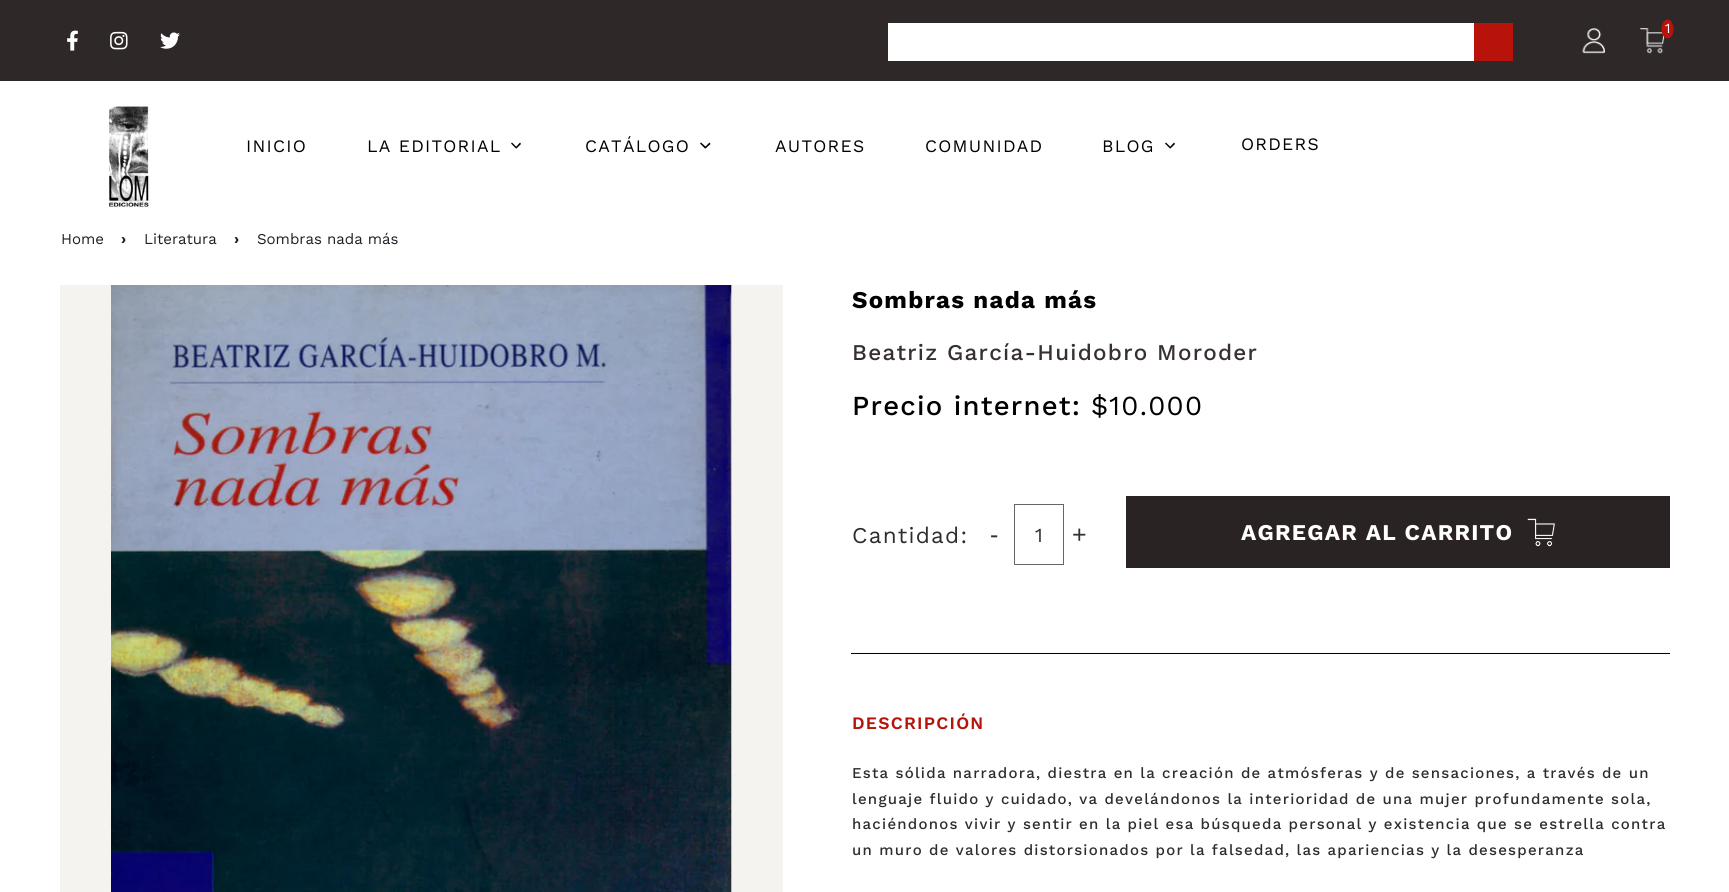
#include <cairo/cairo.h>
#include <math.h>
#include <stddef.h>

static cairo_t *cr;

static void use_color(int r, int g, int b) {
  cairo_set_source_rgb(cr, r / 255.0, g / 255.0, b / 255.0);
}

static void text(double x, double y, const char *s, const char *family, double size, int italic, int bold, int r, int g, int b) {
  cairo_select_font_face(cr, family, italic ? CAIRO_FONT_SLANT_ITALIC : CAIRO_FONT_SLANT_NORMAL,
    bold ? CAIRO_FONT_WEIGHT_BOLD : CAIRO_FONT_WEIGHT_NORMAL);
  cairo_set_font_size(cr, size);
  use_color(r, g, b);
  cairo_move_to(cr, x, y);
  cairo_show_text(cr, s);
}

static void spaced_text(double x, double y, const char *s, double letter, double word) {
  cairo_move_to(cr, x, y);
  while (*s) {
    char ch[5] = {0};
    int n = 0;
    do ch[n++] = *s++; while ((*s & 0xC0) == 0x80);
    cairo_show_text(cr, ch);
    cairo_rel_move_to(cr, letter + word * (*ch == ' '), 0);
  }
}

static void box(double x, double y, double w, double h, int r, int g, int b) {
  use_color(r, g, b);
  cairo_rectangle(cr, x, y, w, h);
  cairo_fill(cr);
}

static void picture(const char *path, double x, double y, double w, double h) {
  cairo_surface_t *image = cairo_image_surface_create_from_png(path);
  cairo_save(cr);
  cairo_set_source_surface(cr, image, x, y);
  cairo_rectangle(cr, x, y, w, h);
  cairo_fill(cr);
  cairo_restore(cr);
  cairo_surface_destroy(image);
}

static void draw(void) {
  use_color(255, 255, 255);
  cairo_paint(cr);
  box(0, 0, 1729, 81, 46, 40, 40);
  box(888, 23, 586, 38, 255, 255, 255);
  box(1474, 23, 39, 38, 183, 19, 11);
  picture("img_01.png", 1582, 28, 23, 26);
  picture("img_02.png", 1640, 28, 25, 26);
  cairo_new_path(cr);
  cairo_move_to(cr, 1667.5, 19.5);
  cairo_curve_to(cr, 1671, 19.5, 1673.5, 24, 1673.5, 29);
  cairo_curve_to(cr, 1673.5, 34, 1671, 38.5, 1667.5, 38.5);
  cairo_curve_to(cr, 1664, 38.5, 1661.5, 34, 1661.5, 29);
  cairo_curve_to(cr, 1661.5, 24, 1664, 19.5, 1667.5, 19.5);
  cairo_close_path(cr);
  cairo_fill(cr);
  picture("img_03.png", 67, 30, 11, 21);
  picture("img_04.png", 110, 31, 18, 19);
  picture("img_05.png", 160, 32, 20, 17);
  picture("img_06.png", 109, 104, 42, 104);
  use_color(0, 0, 0);
  cairo_new_path(cr);
  cairo_move_to(cr, 520, 142.5);
  cairo_line_to(cr, 521, 144);
  cairo_line_to(cr, 516.5, 148.5);
  cairo_line_to(cr, 515.5, 147.5);
  cairo_close_path(cr);
  cairo_fill(cr);
  cairo_new_path(cr);
  cairo_move_to(cr, 512, 142.5);
  cairo_line_to(cr, 517, 147.5);
  cairo_line_to(cr, 516, 148.5);
  cairo_line_to(cr, 511, 143.5);
  cairo_close_path(cr);
  cairo_fill(cr);
  cairo_new_path(cr);
  cairo_move_to(cr, 709.5, 142.5);
  cairo_line_to(cr, 710.5, 144);
  cairo_line_to(cr, 705.5, 148.5);
  cairo_line_to(cr, 704.5, 147.5);
  cairo_close_path(cr);
  cairo_fill(cr);
  cairo_new_path(cr);
  cairo_move_to(cr, 701, 142.5);
  cairo_line_to(cr, 706.5, 147.5);
  cairo_line_to(cr, 705, 148.5);
  cairo_line_to(cr, 700, 143.5);
  cairo_close_path(cr);
  cairo_fill(cr);
  cairo_new_path(cr);
  cairo_move_to(cr, 1174, 142.5);
  cairo_line_to(cr, 1175, 144);
  cairo_line_to(cr, 1170.5, 148.5);
  cairo_line_to(cr, 1169.5, 147.5);
  cairo_close_path(cr);
  cairo_fill(cr);
  cairo_new_path(cr);
  cairo_move_to(cr, 1166, 142.5);
  cairo_line_to(cr, 1171, 147.5);
  cairo_line_to(cr, 1170, 148.5);
  cairo_line_to(cr, 1165, 143.5);
  cairo_close_path(cr);
  cairo_fill(cr);
  box(731, 285, 52, 607, 245, 243, 239);
  box(60, 285, 51, 607, 245, 243, 239);
  picture("img_07.png", 111, 285, 621, 607);
  cairo_rectangle(cr, 1014.5, 504.5, 49, 60);
  use_color(102, 102, 102);
  cairo_set_line_width(cr, 1);
  cairo_stroke(cr);
  box(1126, 496, 544, 72, 42, 35, 36);
  picture("img_08.png", 1527, 518, 28, 29);
  box(851, 653, 819, 1, 0, 0, 0);
  text(1665, 33, "1", "Work Sans", 14, 0, 0, 255, 255, 255);
  cairo_set_font_size(cr, 17.5);
  use_color(0, 0, 0);
  spaced_text(246, 152, "INICIO", 1.25, 0);
  spaced_text(367, 152, "LA EDITORIAL", 1.25, 0);
  spaced_text(585, 152, "CATÁLOGO", 1.25, 0);
  spaced_text(775, 152, "AUTORES", 1.25, 0);
  spaced_text(925, 152, "COMUNIDAD", 1.25, 0);
  spaced_text(1102, 152, "BLOG", 1.25, 0);
  spaced_text(1241, 150, "ORDERS", 1.25, 0);
  text(61, 244, "Home", "Work Sans", 15, 0, 0, 30, 30, 39);
  text(121, 244, "›", "Work Sans", 15, 0, 1, 30, 30, 39);
  text(144, 244, "Literatura", "Work Sans", 15, 0, 0, 30, 30, 39);
  text(234, 244, "›", "Work Sans", 15, 0, 1, 30, 30, 39);
  text(257, 244, "Sombras nada más", "Work Sans", 15, 0, 0, 30, 30, 39);
  cairo_select_font_face(cr, "Work Sans", CAIRO_FONT_SLANT_NORMAL, CAIRO_FONT_WEIGHT_BOLD);
  cairo_set_font_size(cr, 24);
  use_color(0, 0, 0);
  spaced_text(852, 308, "Sombras nada más", 1.25, 0);
  cairo_select_font_face(cr, "Work Sans Medium", CAIRO_FONT_SLANT_NORMAL, CAIRO_FONT_WEIGHT_NORMAL);
  cairo_set_font_size(cr, 22.5);
  use_color(55, 47, 48);
  spaced_text(852, 360, "Beatriz García-Huidobro Moroder", 1.25, 0);
  cairo_set_font_size(cr, 27.5);
  use_color(0, 0, 0);
  spaced_text(852, 415, "Precio internet:", 1.25, 0);
  cairo_select_font_face(cr, "Work Sans", CAIRO_FONT_SLANT_NORMAL, CAIRO_FONT_WEIGHT_NORMAL);
  spaced_text(1091, 415, "$10.000", 1.25, 0);
  cairo_set_font_size(cr, 22.5);
  use_color(45, 45, 45);
  spaced_text(852, 543, "Cantidad:", 1.25, 0);
  text(990, 543, "-", "Liberation Sans", 25, 0, 0, 55, 47, 48);
  text(1072, 543, "+", "Liberation Sans", 25, 0, 0, 55, 47, 48);
  text(1035, 542, "1", "Work Sans", 20, 0, 0, 55, 47, 48);
  cairo_select_font_face(cr, "Work Sans", CAIRO_FONT_SLANT_NORMAL, CAIRO_FONT_WEIGHT_BOLD);
  cairo_set_font_size(cr, 22.5);
  use_color(255, 255, 255);
  spaced_text(1241, 540, "AGREGAR AL CARRITO", 1.25, 0);
  cairo_select_font_face(cr, "Work Sans SemiBold", CAIRO_FONT_SLANT_NORMAL, CAIRO_FONT_WEIGHT_NORMAL);
  cairo_set_font_size(cr, 17.5);
  use_color(183, 19, 11);
  spaced_text(852, 729, "DESCRIPCIÓN", 1.25, 0);
  cairo_select_font_face(cr, "Work Sans Medium", CAIRO_FONT_SLANT_NORMAL, CAIRO_FONT_WEIGHT_NORMAL);
  cairo_set_font_size(cr, 15);
  use_color(45, 45, 45);
  spaced_text(852, 778, "Esta sólida narradora, diestra en la creación de atmósferas y de sensaciones, a través de un", 1.25, 0);
  spaced_text(852, 804, "lenguaje fluido y cuidado, va develándonos la interioridad de una mujer profundamente sola,", 1.25, 0);
  spaced_text(852, 829, "haciéndonos vivir y sentir en la piel esa búsqueda personal y existencia que se estrella contra", 1.25, 0);
  spaced_text(852, 855, "un muro de valores distorsionados por la falsedad, las apariencias y la desesperanza", 1.25, 0);
}

int main(void) {
  cairo_surface_t *surface = cairo_image_surface_create(CAIRO_FORMAT_RGB24, 1729, 892);
  cr = cairo_create(surface);
  cairo_font_options_t *options = cairo_font_options_create();
  cairo_font_options_set_hint_metrics(options, CAIRO_HINT_METRICS_OFF);
  cairo_font_options_set_hint_style(options, CAIRO_HINT_STYLE_NONE);
  cairo_set_font_options(cr, options);
  cairo_set_miter_limit(cr, 4);
  draw();
  cairo_surface_write_to_png(surface, "out.png");
  cairo_font_options_destroy(options);
  cairo_destroy(cr);
  cairo_surface_destroy(surface);
  return 0;
}
